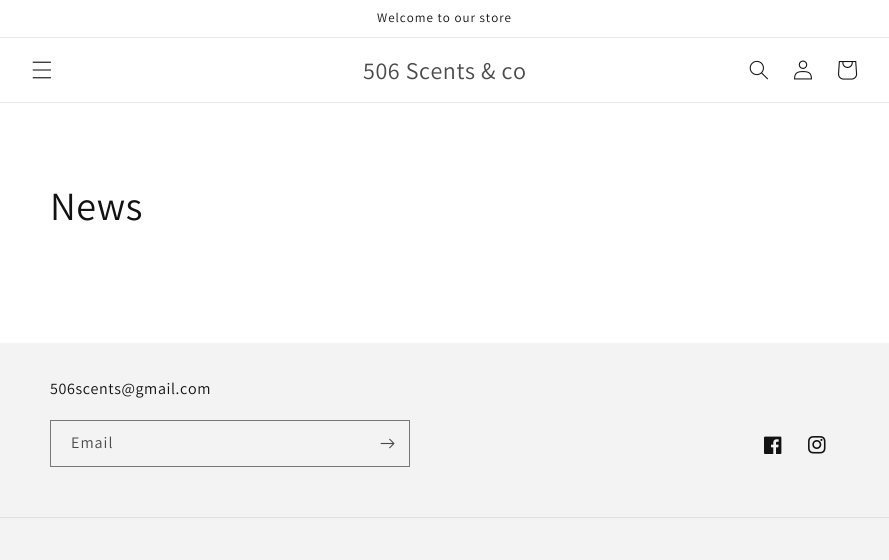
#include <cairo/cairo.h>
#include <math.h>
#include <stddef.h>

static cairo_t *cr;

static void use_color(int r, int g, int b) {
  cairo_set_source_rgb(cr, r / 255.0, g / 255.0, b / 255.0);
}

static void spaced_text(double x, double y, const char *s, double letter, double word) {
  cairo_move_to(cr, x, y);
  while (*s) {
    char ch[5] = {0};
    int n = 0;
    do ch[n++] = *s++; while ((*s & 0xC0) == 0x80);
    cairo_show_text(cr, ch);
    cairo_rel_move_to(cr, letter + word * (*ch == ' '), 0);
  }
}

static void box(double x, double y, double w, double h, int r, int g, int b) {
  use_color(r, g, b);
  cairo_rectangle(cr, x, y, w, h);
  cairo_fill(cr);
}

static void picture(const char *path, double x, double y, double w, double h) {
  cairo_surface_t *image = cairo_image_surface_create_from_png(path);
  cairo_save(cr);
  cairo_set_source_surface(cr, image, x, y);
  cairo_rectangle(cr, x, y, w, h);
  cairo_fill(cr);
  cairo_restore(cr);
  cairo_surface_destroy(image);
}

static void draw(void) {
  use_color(255, 255, 255);
  cairo_paint(cr);
  box(0, 37, 889, 1, 236, 236, 236);
  box(0, 102, 889, 1, 236, 236, 236);
  picture("img_01.png", 32, 61, 20, 18);
  picture("img_02.png", 749, 60, 19, 20);
  picture("img_03.png", 794, 60, 18, 20);
  picture("img_04.png", 838, 61, 20, 19);
  box(0, 343, 889, 217, 243, 243, 243);
  cairo_rectangle(cr, 50.5, 420.5, 359, 46);
  use_color(119, 119, 119);
  cairo_set_line_width(cr, 1);
  cairo_stroke(cr);
  picture("img_05.png", 380, 438, 15, 11);
  picture("img_06.png", 764, 436, 18, 18);
  picture("img_07.png", 808, 436, 18, 18);
  box(0, 517, 889, 1, 225, 225, 225);
  cairo_select_font_face(cr, "Assistant", CAIRO_FONT_SLANT_NORMAL, CAIRO_FONT_WEIGHT_NORMAL);
  cairo_set_font_size(cr, 13);
  use_color(18, 18, 18);
  spaced_text(377, 22, "Welcome to our store", 1, 0);
  cairo_set_font_size(cr, 24);
  use_color(74, 74, 74);
  spaced_text(363, 79, "506 Scents & co", 0.6, 0);
  cairo_set_font_size(cr, 40);
  use_color(18, 18, 18);
  spaced_text(50, 220, "News", 0.6, 0);
  cairo_set_font_size(cr, 16);
  spaced_text(50, 394, "506scents@gmail.com", 0.6, 0);
  use_color(74, 74, 74);
  spaced_text(71, 448, "Email", 1, 0);
}

int main(void) {
  cairo_surface_t *surface = cairo_image_surface_create(CAIRO_FORMAT_RGB24, 889, 560);
  cr = cairo_create(surface);
  cairo_font_options_t *options = cairo_font_options_create();
  cairo_font_options_set_hint_metrics(options, CAIRO_HINT_METRICS_OFF);
  cairo_font_options_set_hint_style(options, CAIRO_HINT_STYLE_NONE);
  cairo_set_font_options(cr, options);
  cairo_set_miter_limit(cr, 4);
  draw();
  cairo_surface_write_to_png(surface, "out.png");
  cairo_font_options_destroy(options);
  cairo_destroy(cr);
  cairo_surface_destroy(surface);
  return 0;
}
